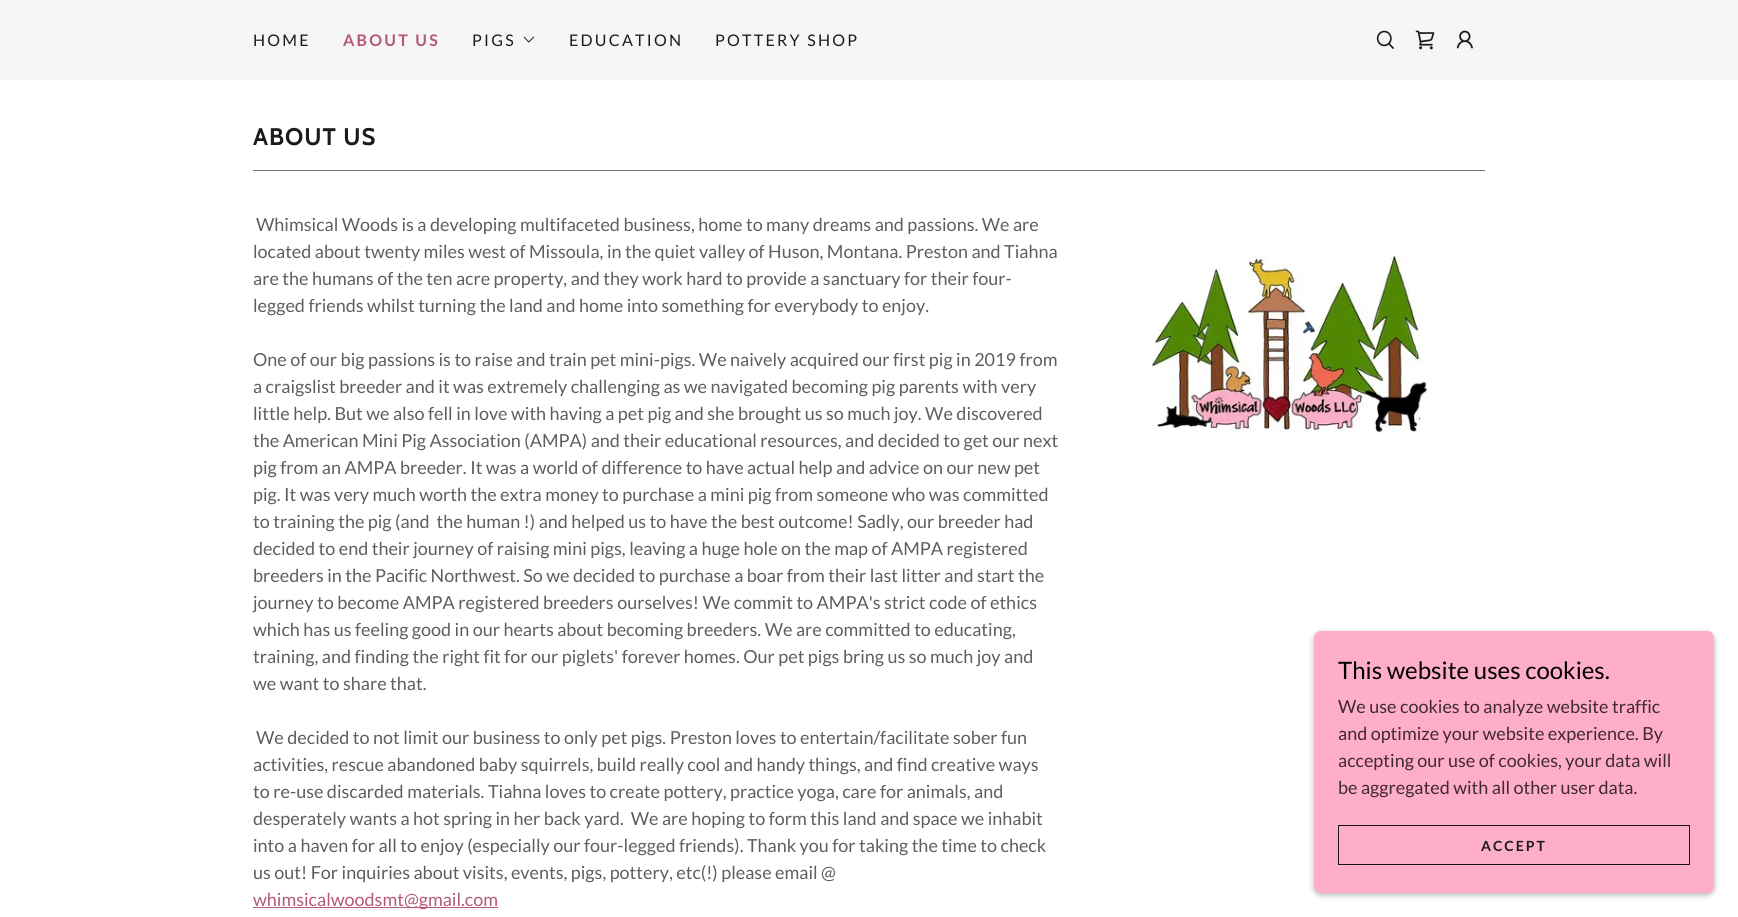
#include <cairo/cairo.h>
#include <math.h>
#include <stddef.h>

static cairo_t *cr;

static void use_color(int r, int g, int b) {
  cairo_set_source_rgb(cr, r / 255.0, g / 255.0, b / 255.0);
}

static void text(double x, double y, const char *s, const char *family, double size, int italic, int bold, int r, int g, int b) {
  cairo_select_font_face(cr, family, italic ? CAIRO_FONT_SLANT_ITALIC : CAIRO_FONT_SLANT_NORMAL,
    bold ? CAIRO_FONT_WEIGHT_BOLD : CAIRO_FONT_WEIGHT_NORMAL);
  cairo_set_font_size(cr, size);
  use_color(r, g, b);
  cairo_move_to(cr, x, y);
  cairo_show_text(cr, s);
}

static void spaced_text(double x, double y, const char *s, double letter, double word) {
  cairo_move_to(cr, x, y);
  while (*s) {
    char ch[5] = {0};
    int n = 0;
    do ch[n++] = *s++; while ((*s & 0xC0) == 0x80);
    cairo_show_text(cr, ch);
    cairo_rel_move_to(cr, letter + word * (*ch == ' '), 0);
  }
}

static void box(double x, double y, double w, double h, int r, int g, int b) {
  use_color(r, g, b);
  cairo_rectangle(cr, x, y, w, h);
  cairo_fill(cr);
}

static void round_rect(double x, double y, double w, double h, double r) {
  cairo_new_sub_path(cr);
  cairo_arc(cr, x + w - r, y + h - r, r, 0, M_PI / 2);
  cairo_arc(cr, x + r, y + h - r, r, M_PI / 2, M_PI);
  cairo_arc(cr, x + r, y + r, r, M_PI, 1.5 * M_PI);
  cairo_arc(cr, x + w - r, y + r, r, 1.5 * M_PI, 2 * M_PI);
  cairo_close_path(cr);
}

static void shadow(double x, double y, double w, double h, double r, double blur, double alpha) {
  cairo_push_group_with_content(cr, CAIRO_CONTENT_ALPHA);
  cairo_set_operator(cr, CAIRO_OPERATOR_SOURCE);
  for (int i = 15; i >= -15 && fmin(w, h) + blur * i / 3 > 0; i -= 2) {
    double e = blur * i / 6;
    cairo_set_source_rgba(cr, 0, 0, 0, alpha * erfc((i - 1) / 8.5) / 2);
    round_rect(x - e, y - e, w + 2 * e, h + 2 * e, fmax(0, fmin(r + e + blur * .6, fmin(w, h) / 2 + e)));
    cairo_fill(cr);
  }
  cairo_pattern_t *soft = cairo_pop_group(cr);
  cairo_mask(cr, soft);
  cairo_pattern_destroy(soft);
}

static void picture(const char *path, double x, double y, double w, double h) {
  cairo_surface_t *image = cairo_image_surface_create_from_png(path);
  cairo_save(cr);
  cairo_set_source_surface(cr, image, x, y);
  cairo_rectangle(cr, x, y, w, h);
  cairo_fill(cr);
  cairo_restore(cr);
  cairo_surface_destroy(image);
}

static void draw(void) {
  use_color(255, 255, 255);
  cairo_paint(cr);
  box(0, 0, 1738, 80, 246, 246, 246);
  picture("img_01.png", 523, 36, 12, 7);
  picture("img_02.png", 1376, 30, 18, 19);
  picture("img_03.png", 1415, 30, 20, 20);
  picture("img_04.png", 1456, 30, 17, 19);
  box(253, 170, 1232, 1, 119, 119, 119);
  box(253, 907, 245, 1, 181, 89, 117);
  picture("img_05.png", 1150, 254, 278, 180);
  use_color(0, 0, 0);
  shadow(1314, 633, 400, 262, 7, 3, 0.3);
  use_color(254, 175, 199);
  round_rect(1314, 631, 400, 262, 7);
  cairo_fill(cr);
  cairo_rectangle(cr, 1338.5, 825.5, 351, 39);
  use_color(22, 22, 22);
  cairo_set_line_width(cr, 1);
  cairo_stroke(cr);
  cairo_select_font_face(cr, "Lato", CAIRO_FONT_SLANT_NORMAL, CAIRO_FONT_WEIGHT_NORMAL);
  cairo_set_font_size(cr, 16);
  use_color(27, 27, 27);
  spaced_text(253, 46, "HOME", 2.25, 0);
  cairo_select_font_face(cr, "Lato", CAIRO_FONT_SLANT_NORMAL, CAIRO_FONT_WEIGHT_BOLD);
  use_color(181, 89, 117);
  spaced_text(343, 46, "ABOUT US", 2.25, 0);
  cairo_select_font_face(cr, "Lato", CAIRO_FONT_SLANT_NORMAL, CAIRO_FONT_WEIGHT_NORMAL);
  use_color(27, 27, 27);
  spaced_text(472, 46, "PIGS", 2.25, 0);
  spaced_text(569, 46, "EDUCATION", 2.25, 0);
  spaced_text(715, 46, "POTTERY SHOP", 2.25, 0);
  cairo_select_font_face(cr, "Cabin", CAIRO_FONT_SLANT_NORMAL, CAIRO_FONT_WEIGHT_BOLD);
  cairo_set_font_size(cr, 24);
  spaced_text(253, 145, "ABOUT US", 1, 0);
  text(256, 231, "Whimsical Woods is a developing multifaceted business, home to many dreams and passions. We are", "Lato", 18, 0, 0, 94, 94, 94);
  text(253, 258, "located about twenty miles west of Missoula, in the quiet valley of Huson, Montana. Preston and Tiahna", "Lato", 18, 0, 0, 94, 94, 94);
  text(253, 285, "are the humans of the ten acre property, and they work hard to provide a sanctuary for their four-", "Lato", 18, 0, 0, 94, 94, 94);
  text(253, 312, "legged friends whilst turning the land and home into something for everybody to enjoy.", "Lato", 18, 0, 0, 94, 94, 94);
  text(253, 366, "One of our big passions is to raise and train pet mini-pigs. We naively acquired our first pig in 2019 from", "Lato", 18, 0, 0, 94, 94, 94);
  text(253, 393, "a craigslist breeder and it was extremely challenging as we navigated becoming pig parents with very", "Lato", 18, 0, 0, 94, 94, 94);
  text(253, 420, "little help. But we also fell in love with having a pet pig and she brought us so much joy. We discovered", "Lato", 18, 0, 0, 94, 94, 94);
  text(253, 447, "the American Mini Pig Association (AMPA) and their educational resources, and decided to get our next", "Lato", 18, 0, 0, 94, 94, 94);
  text(253, 474, "pig from an AMPA breeder. It was a world of difference to have actual help and advice on our new pet", "Lato", 18, 0, 0, 94, 94, 94);
  text(253, 501, "pig. It was very much worth the extra money to purchase a mini pig from someone who was committed", "Lato", 18, 0, 0, 94, 94, 94);
  text(253, 528, "to training the pig (and  the human !) and helped us to have the best outcome! Sadly, our breeder had", "Lato", 18, 0, 0, 94, 94, 94);
  text(253, 555, "decided to end their journey of raising mini pigs, leaving a huge hole on the map of AMPA registered", "Lato", 18, 0, 0, 94, 94, 94);
  text(253, 582, "breeders in the Pacific Northwest. So we decided to purchase a boar from their last litter and start the", "Lato", 18, 0, 0, 94, 94, 94);
  text(253, 609, "journey to become AMPA registered breeders ourselves! We commit to AMPA's strict code of ethics", "Lato", 18, 0, 0, 94, 94, 94);
  text(253, 636, "which has us feeling good in our hearts about becoming breeders. We are committed to educating,", "Lato", 18, 0, 0, 94, 94, 94);
  text(253, 663, "training, and finding the right fit for our piglets' forever homes. Our pet pigs bring us so much joy and", "Lato", 18, 0, 0, 94, 94, 94);
  text(253, 690, "we want to share that.", "Lato", 18, 0, 0, 94, 94, 94);
  text(256, 744, "We decided to not limit our business to only pet pigs. Preston loves to entertain/facilitate sober fun", "Lato", 18, 0, 0, 94, 94, 94);
  text(253, 771, "activities, rescue abandoned baby squirrels, build really cool and handy things, and find creative ways", "Lato", 18, 0, 0, 94, 94, 94);
  text(253, 798, "to re-use discarded materials. Tiahna loves to create pottery, practice yoga, care for animals, and", "Lato", 18, 0, 0, 94, 94, 94);
  text(253, 825, "desperately wants a hot spring in her back yard.  We are hoping to form this land and space we inhabit", "Lato", 18, 0, 0, 94, 94, 94);
  text(253, 852, "into a haven for all to enjoy (especially our four-legged friends). Thank you for taking the time to check", "Lato", 18, 0, 0, 94, 94, 94);
  text(253, 879, "us out! For inquiries about visits, events, pigs, pottery, etc(!) please email @", "Lato", 18, 0, 0, 94, 94, 94);
  text(253, 906, "whimsicalwoodsmt@gmail.com", "Lato", 18, 0, 0, 181, 89, 117);
  text(1338, 679, "This website uses cookies.", "Lato", 24, 0, 0, 0, 0, 0);
  text(1338, 713, "We use cookies to analyze website traffic", "Lato", 18, 0, 0, 64, 41, 48);
  text(1338, 740, "and optimize your website experience. By", "Lato", 18, 0, 0, 64, 41, 48);
  text(1338, 767, "accepting our use of cookies, your data will", "Lato", 18, 0, 0, 64, 41, 48);
  text(1338, 794, "be aggregated with all other user data.", "Lato", 18, 0, 0, 64, 41, 48);
  cairo_select_font_face(cr, "Lato", CAIRO_FONT_SLANT_NORMAL, CAIRO_FONT_WEIGHT_BOLD);
  cairo_set_font_size(cr, 14);
  use_color(27, 27, 27);
  spaced_text(1481, 851, "ACCEPT", 2, 0);
}

int main(void) {
  cairo_surface_t *surface = cairo_image_surface_create(CAIRO_FORMAT_RGB24, 1738, 917);
  cr = cairo_create(surface);
  cairo_font_options_t *options = cairo_font_options_create();
  cairo_font_options_set_hint_metrics(options, CAIRO_HINT_METRICS_OFF);
  cairo_font_options_set_hint_style(options, CAIRO_HINT_STYLE_NONE);
  cairo_set_font_options(cr, options);
  cairo_set_miter_limit(cr, 4);
  draw();
  cairo_surface_write_to_png(surface, "out.png");
  cairo_font_options_destroy(options);
  cairo_destroy(cr);
  cairo_surface_destroy(surface);
  return 0;
}
